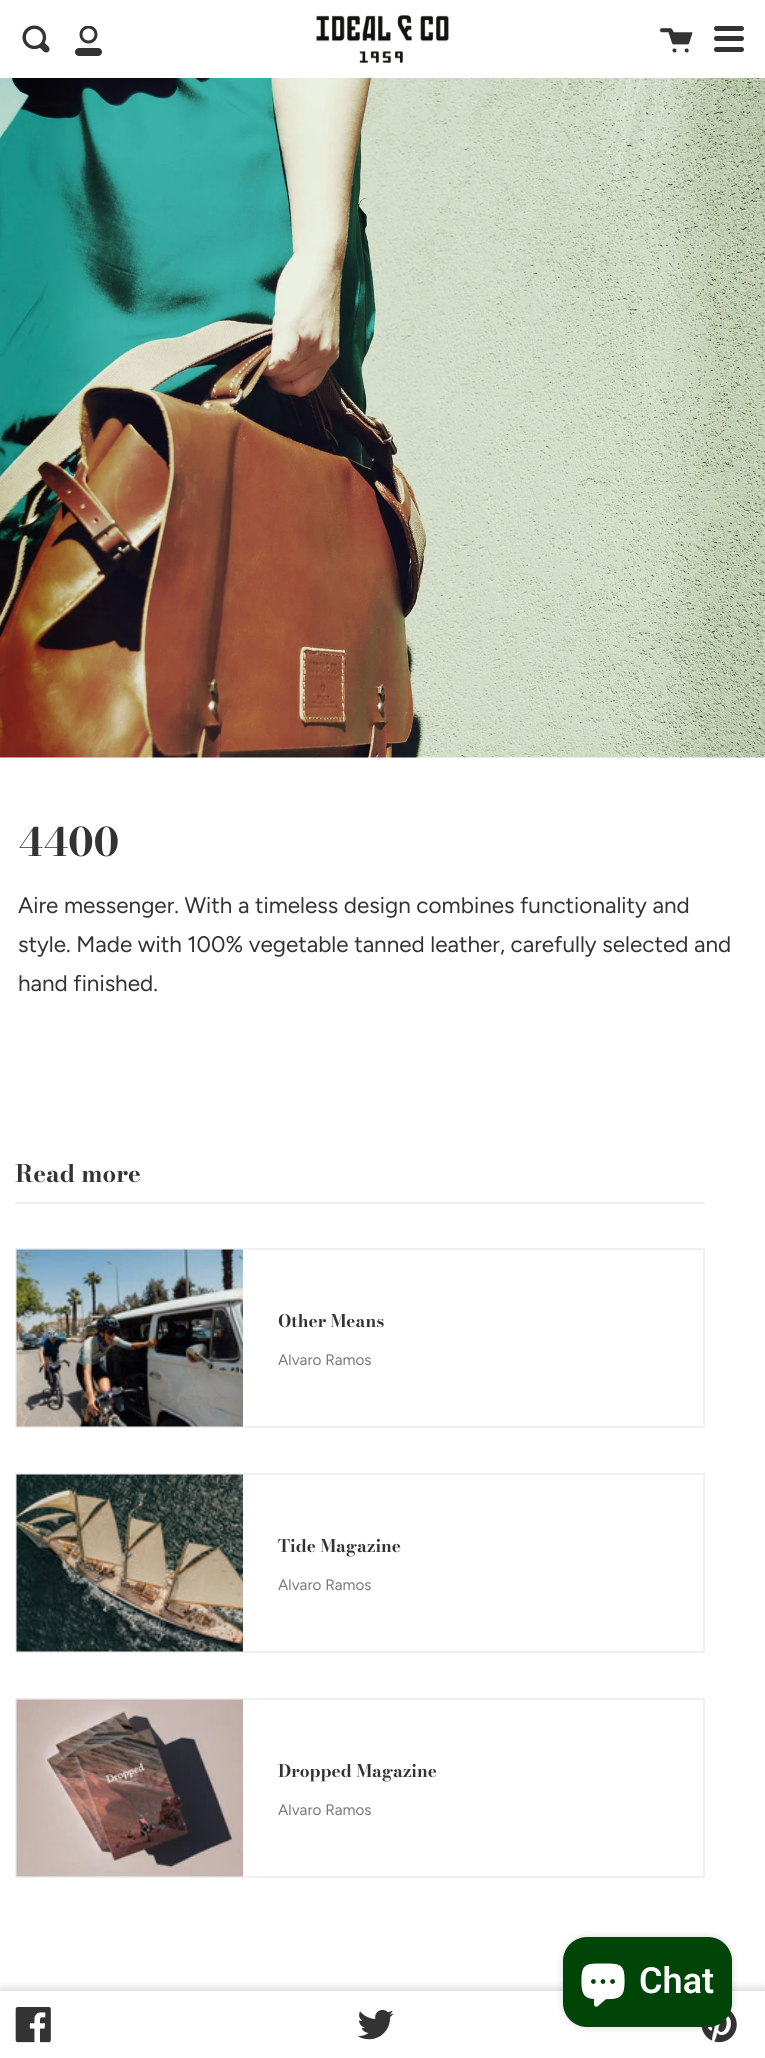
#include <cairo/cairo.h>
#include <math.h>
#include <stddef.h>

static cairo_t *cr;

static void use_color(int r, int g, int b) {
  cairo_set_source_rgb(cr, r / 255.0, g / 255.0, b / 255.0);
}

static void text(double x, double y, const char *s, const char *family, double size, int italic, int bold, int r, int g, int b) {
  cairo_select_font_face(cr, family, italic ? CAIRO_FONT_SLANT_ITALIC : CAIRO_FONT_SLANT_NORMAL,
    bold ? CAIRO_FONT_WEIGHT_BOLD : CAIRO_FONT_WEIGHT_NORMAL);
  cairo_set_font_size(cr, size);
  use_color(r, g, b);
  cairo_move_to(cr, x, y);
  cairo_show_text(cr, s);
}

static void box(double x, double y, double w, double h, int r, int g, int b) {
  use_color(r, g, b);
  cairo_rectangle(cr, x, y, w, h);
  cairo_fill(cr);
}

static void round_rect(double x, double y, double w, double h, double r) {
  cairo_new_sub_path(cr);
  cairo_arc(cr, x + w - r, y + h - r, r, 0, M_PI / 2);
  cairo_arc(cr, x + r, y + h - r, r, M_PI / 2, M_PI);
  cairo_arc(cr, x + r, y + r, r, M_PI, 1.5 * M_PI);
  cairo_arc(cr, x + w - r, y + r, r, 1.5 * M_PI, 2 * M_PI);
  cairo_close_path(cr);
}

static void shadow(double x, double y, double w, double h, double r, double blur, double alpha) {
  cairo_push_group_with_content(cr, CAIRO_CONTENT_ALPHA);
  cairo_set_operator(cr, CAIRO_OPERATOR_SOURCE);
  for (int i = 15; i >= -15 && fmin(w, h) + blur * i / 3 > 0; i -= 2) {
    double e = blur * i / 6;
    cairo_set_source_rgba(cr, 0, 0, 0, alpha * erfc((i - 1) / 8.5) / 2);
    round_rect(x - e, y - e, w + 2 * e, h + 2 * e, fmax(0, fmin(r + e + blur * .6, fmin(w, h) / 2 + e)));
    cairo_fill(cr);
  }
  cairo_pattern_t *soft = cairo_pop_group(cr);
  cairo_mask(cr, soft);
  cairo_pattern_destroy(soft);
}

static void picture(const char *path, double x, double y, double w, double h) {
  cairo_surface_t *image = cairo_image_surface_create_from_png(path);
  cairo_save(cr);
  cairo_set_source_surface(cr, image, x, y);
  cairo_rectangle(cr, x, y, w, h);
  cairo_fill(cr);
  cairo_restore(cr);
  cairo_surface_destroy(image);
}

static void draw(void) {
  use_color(255, 255, 255);
  cairo_paint(cr);
  picture("img_01.png", 316, 15, 133, 48);
  picture("img_02.png", 22, 25, 28, 28);
  picture("img_03.png", 75, 26, 27, 30);
  picture("img_04.png", 660, 28, 33, 25);
  use_color(51, 51, 51);
  cairo_new_path(cr);
  cairo_move_to(cr, 716.5, 26);
  cairo_line_to(cr, 740, 26);
  cairo_line_to(cr, 740, 31);
  cairo_line_to(cr, 716.5, 31);
  cairo_curve_to(cr, 715, 31, 714, 30, 714, 28.5);
  cairo_curve_to(cr, 714, 27, 715, 26, 716.5, 26);
  cairo_close_path(cr);
  cairo_fill(cr);
  cairo_new_path(cr);
  cairo_move_to(cr, 719, 26);
  cairo_line_to(cr, 741.5, 26);
  cairo_curve_to(cr, 743, 26, 744, 27, 744, 28.5);
  cairo_curve_to(cr, 744, 30, 743, 31, 741.5, 31);
  cairo_line_to(cr, 719, 31);
  cairo_close_path(cr);
  cairo_fill(cr);
  cairo_new_path(cr);
  cairo_move_to(cr, 716.5, 36);
  cairo_line_to(cr, 740, 36);
  cairo_line_to(cr, 740, 41);
  cairo_line_to(cr, 716.5, 41);
  cairo_curve_to(cr, 715, 41, 714, 40, 714, 38.5);
  cairo_curve_to(cr, 714, 37, 715, 36, 716.5, 36);
  cairo_close_path(cr);
  cairo_fill(cr);
  cairo_new_path(cr);
  cairo_move_to(cr, 719, 36);
  cairo_line_to(cr, 741.5, 36);
  cairo_curve_to(cr, 743, 36, 744, 37, 744, 38.5);
  cairo_curve_to(cr, 744, 40, 743, 41, 741.5, 41);
  cairo_line_to(cr, 719, 41);
  cairo_close_path(cr);
  cairo_fill(cr);
  cairo_new_path(cr);
  cairo_move_to(cr, 716.5, 47);
  cairo_line_to(cr, 740, 47);
  cairo_line_to(cr, 740, 52);
  cairo_line_to(cr, 716.5, 52);
  cairo_curve_to(cr, 715, 52, 714, 51, 714, 49.5);
  cairo_curve_to(cr, 714, 48, 715, 47, 716.5, 47);
  cairo_close_path(cr);
  cairo_fill(cr);
  cairo_new_path(cr);
  cairo_move_to(cr, 719, 47);
  cairo_line_to(cr, 741.5, 47);
  cairo_curve_to(cr, 743, 47, 744, 48, 744, 49.5);
  cairo_curve_to(cr, 744, 51, 743, 52, 741.5, 52);
  cairo_line_to(cr, 719, 52);
  cairo_close_path(cr);
  cairo_fill(cr);
  picture("img_05.png", 0, 78, 765, 680);
  use_color(0, 0, 0);
  shadow(0, 1988, 765, 67, 0, 4, 0.15);
  box(0, 1991, 765, 67, 255, 255, 255);
  picture("img_06.png", 15, 2007, 36, 36);
  picture("img_07.png", 357, 2009, 37, 31);
  picture("img_08.png", 701, 2010, 36, 33);
  box(15, 1202, 690, 2, 240, 240, 240);
  cairo_rectangle(cr, 16, 1249, 688, 178);
  cairo_stroke(cr);
  picture("img_09.png", 16, 1249, 227, 178);
  cairo_rectangle(cr, 16, 1474, 688, 178);
  cairo_stroke(cr);
  picture("img_10.png", 16, 1474, 227, 178);
  cairo_rectangle(cr, 16, 1699, 688, 178);
  cairo_stroke(cr);
  picture("img_11.png", 16, 1699, 227, 178);
  use_color(0, 0, 0);
  shadow(563, 1937, 169, 90, 24, 4, 0.15);
  use_color(0, 69, 8);
  round_rect(563, 1937, 169, 90, 24);
  cairo_fill(cr);
  picture("img_12.png", 581, 1963, 44, 44);
  text(18, 856, "4400", "Bodoni Moda", 39, 0, 1, 51, 51, 51);
  text(18, 913, "Aire messenger. With a timeless design combines functionality and", "Figtree", 22.5, 0, 0, 51, 51, 51);
  text(18, 952, "style. Made with 100% vegetable tanned leather, carefully selected and", "Figtree", 22.5, 0, 0, 51, 51, 51);
  text(18, 991, "hand finished.", "Figtree", 22.5, 0, 0, 51, 51, 51);
  text(15, 1182, "Read more", "Bodoni Moda", 24, 0, 1, 51, 51, 51);
  text(278, 1327, "Other Means", "Bodoni Moda", 17.25, 0, 1, 51, 51, 51);
  text(278, 1365, "Alvaro Ramos", "Figtree", 15.25, 0, 0, 120, 120, 120);
  text(278, 1552, "Tide Magazine", "Bodoni Moda", 17.25, 0, 1, 51, 51, 51);
  text(278, 1590, "Alvaro Ramos", "Figtree", 15.25, 0, 0, 120, 120, 120);
  text(278, 1777, "Dropped Magazine", "Bodoni Moda", 17.25, 0, 1, 51, 51, 51);
  text(278, 1815, "Alvaro Ramos", "Figtree", 15.25, 0, 0, 120, 120, 120);
  text(639, 1993, "Chat", "Roboto SemiBold", 36, 0, 0, 255, 255, 255);
}

int main(void) {
  cairo_surface_t *surface = cairo_image_surface_create(CAIRO_FORMAT_RGB24, 765, 2058);
  cr = cairo_create(surface);
  cairo_font_options_t *options = cairo_font_options_create();
  cairo_font_options_set_hint_metrics(options, CAIRO_HINT_METRICS_OFF);
  cairo_font_options_set_hint_style(options, CAIRO_HINT_STYLE_NONE);
  cairo_set_font_options(cr, options);
  cairo_set_miter_limit(cr, 4);
  draw();
  cairo_surface_write_to_png(surface, "out.png");
  cairo_font_options_destroy(options);
  cairo_destroy(cr);
  cairo_surface_destroy(surface);
  return 0;
}
